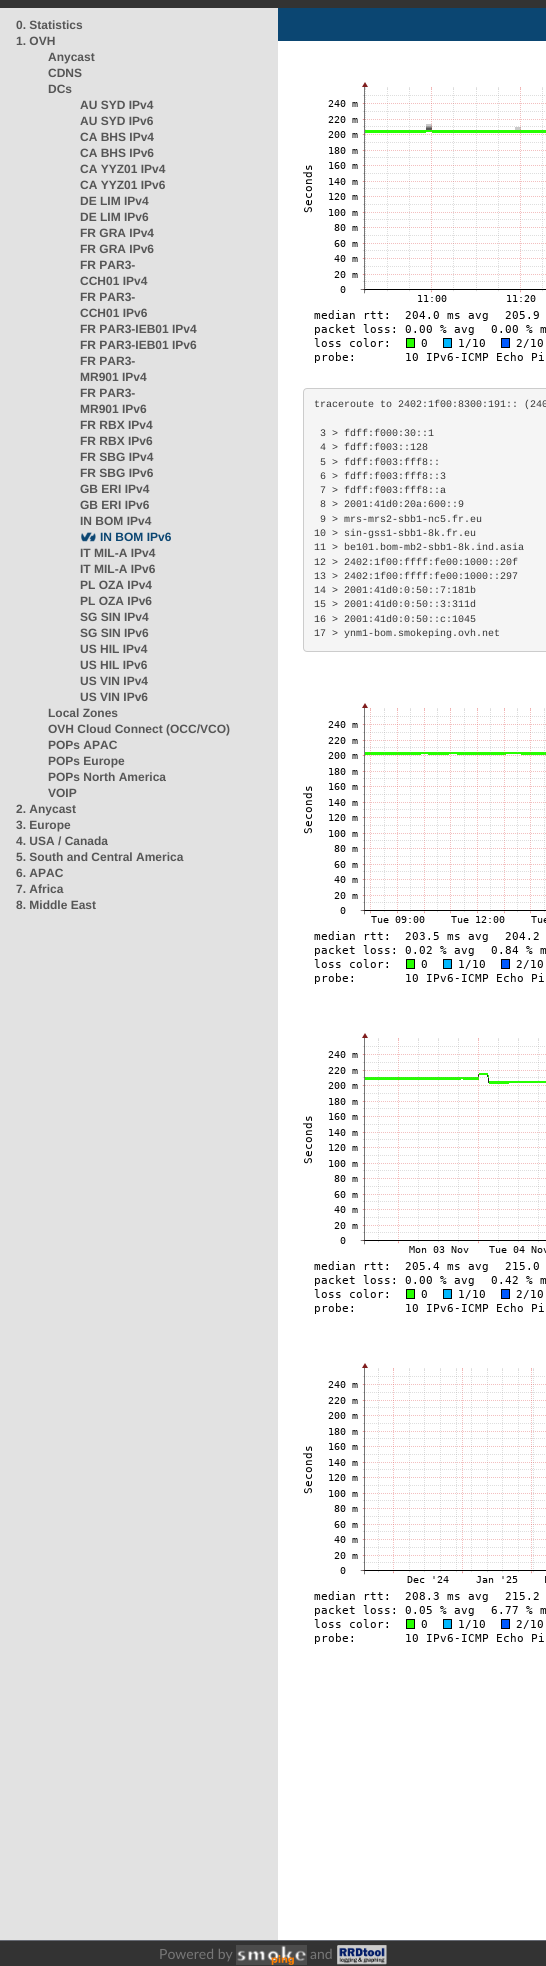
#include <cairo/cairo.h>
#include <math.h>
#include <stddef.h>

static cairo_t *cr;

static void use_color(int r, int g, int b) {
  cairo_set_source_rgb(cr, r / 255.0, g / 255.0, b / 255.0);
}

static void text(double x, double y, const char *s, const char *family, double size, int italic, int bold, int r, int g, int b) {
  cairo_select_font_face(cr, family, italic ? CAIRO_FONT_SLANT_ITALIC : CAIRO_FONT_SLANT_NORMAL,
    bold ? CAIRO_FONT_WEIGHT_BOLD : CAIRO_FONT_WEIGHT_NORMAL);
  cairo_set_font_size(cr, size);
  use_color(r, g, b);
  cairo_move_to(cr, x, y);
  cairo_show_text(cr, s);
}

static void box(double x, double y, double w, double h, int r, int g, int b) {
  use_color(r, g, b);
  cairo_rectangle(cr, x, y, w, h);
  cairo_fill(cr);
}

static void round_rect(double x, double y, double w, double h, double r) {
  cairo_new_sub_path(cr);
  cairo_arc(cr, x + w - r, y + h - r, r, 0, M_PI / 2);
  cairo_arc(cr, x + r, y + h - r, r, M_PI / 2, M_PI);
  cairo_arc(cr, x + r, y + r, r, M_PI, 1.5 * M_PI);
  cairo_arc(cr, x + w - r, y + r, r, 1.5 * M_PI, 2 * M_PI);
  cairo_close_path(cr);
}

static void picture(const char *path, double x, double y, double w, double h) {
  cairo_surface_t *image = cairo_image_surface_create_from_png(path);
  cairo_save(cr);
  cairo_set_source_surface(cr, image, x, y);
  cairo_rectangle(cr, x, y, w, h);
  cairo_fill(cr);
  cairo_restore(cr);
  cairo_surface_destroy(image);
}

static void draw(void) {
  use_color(255, 255, 255);
  cairo_paint(cr);
  box(0, 0, 546, 8, 51, 51, 51);
  box(0, 8, 278, 1932, 226, 226, 226);
  picture("img_01.png", 81, 532, 15, 10);
  box(278, 8, 268, 33, 11, 70, 114);
  picture("img_02.png", 303, 82, 243, 281);
  use_color(245, 245, 245);
  round_rect(303.5, 388.5, 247, 263, 3.5);
  cairo_fill_preserve(cr);
  use_color(204, 204, 204);
  cairo_set_line_width(cr, 1);
  cairo_stroke(cr);
  picture("img_03.png", 303, 703, 243, 281);
  picture("img_04.png", 303, 1033, 243, 281);
  picture("img_05.png", 303, 1363, 243, 281);
  box(0, 1941, 546, 25, 51, 51, 51);
  box(0, 1940, 546, 1, 102, 106, 115);
  picture("img_06.png", 236, 1945, 71, 20);
  picture("img_07.png", 337, 1945, 50, 20);
  text(16, 29, "0. Statistics", "Liberation Sans", 12, 0, 1, 86, 86, 86);
  text(16, 45, "1. OVH", "Liberation Sans", 12, 0, 1, 86, 86, 86);
  text(48, 61, "Anycast", "Liberation Sans", 12, 0, 1, 86, 86, 86);
  text(48, 77, "CDNS", "Liberation Sans", 12, 0, 1, 86, 86, 86);
  text(48, 93, "DCs", "Liberation Sans", 12, 0, 1, 86, 86, 86);
  text(80, 109, "AU SYD IPv4", "Liberation Sans", 12, 0, 1, 86, 86, 86);
  text(80, 125, "AU SYD IPv6", "Liberation Sans", 12, 0, 1, 86, 86, 86);
  text(80, 141, "CA BHS IPv4", "Liberation Sans", 12, 0, 1, 86, 86, 86);
  text(80, 157, "CA BHS IPv6", "Liberation Sans", 12, 0, 1, 86, 86, 86);
  text(80, 173, "CA YYZ01 IPv4", "Liberation Sans", 12, 0, 1, 86, 86, 86);
  text(80, 189, "CA YYZ01 IPv6", "Liberation Sans", 12, 0, 1, 86, 86, 86);
  text(80, 205, "DE LIM IPv4", "Liberation Sans", 12, 0, 1, 86, 86, 86);
  text(80, 221, "DE LIM IPv6", "Liberation Sans", 12, 0, 1, 86, 86, 86);
  text(80, 237, "FR GRA IPv4", "Liberation Sans", 12, 0, 1, 86, 86, 86);
  text(80, 253, "FR GRA IPv6", "Liberation Sans", 12, 0, 1, 86, 86, 86);
  text(80, 269, "FR PAR3-", "Liberation Sans", 12, 0, 1, 86, 86, 86);
  text(80, 285, "CCH01 IPv4", "Liberation Sans", 12, 0, 1, 86, 86, 86);
  text(80, 301, "FR PAR3-", "Liberation Sans", 12, 0, 1, 86, 86, 86);
  text(80, 317, "CCH01 IPv6", "Liberation Sans", 12, 0, 1, 86, 86, 86);
  text(80, 333, "FR PAR3-IEB01 IPv4", "Liberation Sans", 12, 0, 1, 86, 86, 86);
  text(80, 349, "FR PAR3-IEB01 IPv6", "Liberation Sans", 12, 0, 1, 86, 86, 86);
  text(80, 365, "FR PAR3-", "Liberation Sans", 12, 0, 1, 86, 86, 86);
  text(80, 381, "MR901 IPv4", "Liberation Sans", 12, 0, 1, 86, 86, 86);
  text(80, 397, "FR PAR3-", "Liberation Sans", 12, 0, 1, 86, 86, 86);
  text(80, 413, "MR901 IPv6", "Liberation Sans", 12, 0, 1, 86, 86, 86);
  text(80, 429, "FR RBX IPv4", "Liberation Sans", 12, 0, 1, 86, 86, 86);
  text(80, 445, "FR RBX IPv6", "Liberation Sans", 12, 0, 1, 86, 86, 86);
  text(80, 461, "FR SBG IPv4", "Liberation Sans", 12, 0, 1, 86, 86, 86);
  text(80, 477, "FR SBG IPv6", "Liberation Sans", 12, 0, 1, 86, 86, 86);
  text(80, 493, "GB ERI IPv4", "Liberation Sans", 12, 0, 1, 86, 86, 86);
  text(80, 509, "GB ERI IPv6", "Liberation Sans", 12, 0, 1, 86, 86, 86);
  text(80, 525, "IN BOM IPv4", "Liberation Sans", 12, 0, 1, 86, 86, 86);
  text(100, 541, "IN BOM IPv6", "Liberation Sans", 12, 0, 1, 11, 70, 114);
  text(80, 557, "IT MIL-A IPv4", "Liberation Sans", 12, 0, 1, 86, 86, 86);
  text(80, 573, "IT MIL-A IPv6", "Liberation Sans", 12, 0, 1, 86, 86, 86);
  text(80, 589, "PL OZA IPv4", "Liberation Sans", 12, 0, 1, 86, 86, 86);
  text(80, 605, "PL OZA IPv6", "Liberation Sans", 12, 0, 1, 86, 86, 86);
  text(80, 621, "SG SIN IPv4", "Liberation Sans", 12, 0, 1, 86, 86, 86);
  text(80, 637, "SG SIN IPv6", "Liberation Sans", 12, 0, 1, 86, 86, 86);
  text(80, 653, "US HIL IPv4", "Liberation Sans", 12, 0, 1, 86, 86, 86);
  text(80, 669, "US HIL IPv6", "Liberation Sans", 12, 0, 1, 86, 86, 86);
  text(80, 685, "US VIN IPv4", "Liberation Sans", 12, 0, 1, 86, 86, 86);
  text(80, 701, "US VIN IPv6", "Liberation Sans", 12, 0, 1, 86, 86, 86);
  text(48, 717, "Local Zones", "Liberation Sans", 12, 0, 1, 86, 86, 86);
  text(48, 733, "OVH Cloud Connect (OCC/VCO)", "Liberation Sans", 12, 0, 1, 86, 86, 86);
  text(48, 749, "POPs APAC", "Liberation Sans", 12, 0, 1, 86, 86, 86);
  text(48, 765, "POPs Europe", "Liberation Sans", 12, 0, 1, 86, 86, 86);
  text(48, 781, "POPs North America", "Liberation Sans", 12, 0, 1, 86, 86, 86);
  text(48, 797, "VOIP", "Liberation Sans", 12, 0, 1, 86, 86, 86);
  text(16, 813, "2. Anycast", "Liberation Sans", 12, 0, 1, 86, 86, 86);
  text(16, 829, "3. Europe", "Liberation Sans", 12, 0, 1, 86, 86, 86);
  text(16, 845, "4. USA / Canada", "Liberation Sans", 12, 0, 1, 86, 86, 86);
  text(16, 861, "5. South and Central America", "Liberation Sans", 12, 0, 1, 86, 86, 86);
  text(16, 877, "6. APAC", "Liberation Sans", 12, 0, 1, 86, 86, 86);
  text(16, 893, "7. Africa", "Liberation Sans", 12, 0, 1, 86, 86, 86);
  text(16, 909, "8. Middle East", "Liberation Sans", 12, 0, 1, 86, 86, 86);
  text(314, 407, "traceroute to 2402:1f00:8300:191:: (240", "Liberation Mono", 10, 0, 0, 51, 51, 51);
  text(320, 436, "3 > fdff:f000:30::1", "Liberation Mono", 10, 0, 0, 51, 51, 51);
  text(320, 450, "4 > fdff:f003::128", "Liberation Mono", 10, 0, 0, 51, 51, 51);
  text(320, 465, "5 > fdff:f003:fff8::", "Liberation Mono", 10, 0, 0, 51, 51, 51);
  text(320, 479, "6 > fdff:f003:fff8::3", "Liberation Mono", 10, 0, 0, 51, 51, 51);
  text(320, 493, "7 > fdff:f003:fff8::a", "Liberation Mono", 10, 0, 0, 51, 51, 51);
  text(320, 507, "8 > 2001:41d0:20a:600::9", "Liberation Mono", 10, 0, 0, 51, 51, 51);
  text(320, 522, "9 > mrs-mrs2-sbb1-nc5.fr.eu", "Liberation Mono", 10, 0, 0, 51, 51, 51);
  text(314, 536, "10 > sin-gss1-sbb1-8k.fr.eu", "Liberation Mono", 10, 0, 0, 51, 51, 51);
  text(314, 550, "11 > be101.bom-mb2-sbb1-8k.ind.asia", "Liberation Mono", 10, 0, 0, 51, 51, 51);
  text(314, 565, "12 > 2402:1f00:ffff:fe00:1000::20f", "Liberation Mono", 10, 0, 0, 51, 51, 51);
  text(314, 579, "13 > 2402:1f00:ffff:fe00:1000::297", "Liberation Mono", 10, 0, 0, 51, 51, 51);
  text(314, 593, "14 > 2001:41d0:0:50::7:181b", "Liberation Mono", 10, 0, 0, 51, 51, 51);
  text(314, 607, "15 > 2001:41d0:0:50::3:311d", "Liberation Mono", 10, 0, 0, 51, 51, 51);
  text(314, 622, "16 > 2001:41d0:0:50::c:1045", "Liberation Mono", 10, 0, 0, 51, 51, 51);
  text(314, 636, "17 > ynm1-bom.smokeping.ovh.net", "Liberation Mono", 10, 0, 0, 51, 51, 51);
  text(159, 1959, "Powered by", "Lato", 14, 0, 0, 119, 119, 119);
  text(310, 1959, "and", "Lato", 14, 0, 0, 119, 119, 119);
}

int main(void) {
  cairo_surface_t *surface = cairo_image_surface_create(CAIRO_FORMAT_RGB24, 546, 1966);
  cr = cairo_create(surface);
  cairo_font_options_t *options = cairo_font_options_create();
  cairo_font_options_set_hint_metrics(options, CAIRO_HINT_METRICS_OFF);
  cairo_font_options_set_hint_style(options, CAIRO_HINT_STYLE_NONE);
  cairo_set_font_options(cr, options);
  cairo_set_miter_limit(cr, 4);
  draw();
  cairo_surface_write_to_png(surface, "out.png");
  cairo_font_options_destroy(options);
  cairo_destroy(cr);
  cairo_surface_destroy(surface);
  return 0;
}
